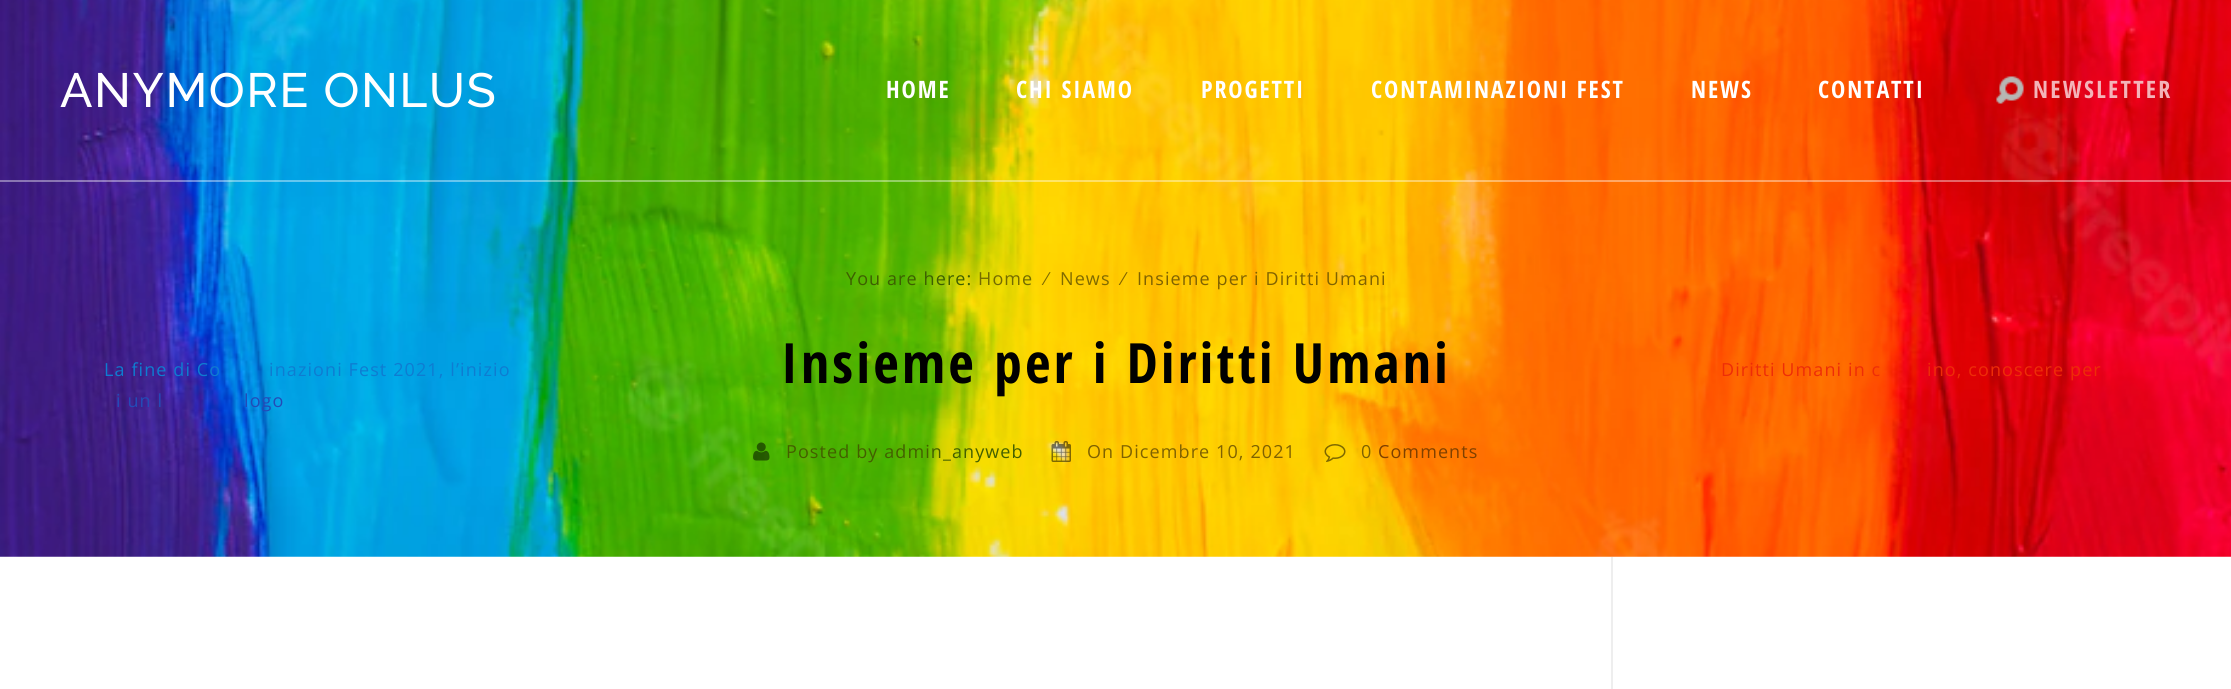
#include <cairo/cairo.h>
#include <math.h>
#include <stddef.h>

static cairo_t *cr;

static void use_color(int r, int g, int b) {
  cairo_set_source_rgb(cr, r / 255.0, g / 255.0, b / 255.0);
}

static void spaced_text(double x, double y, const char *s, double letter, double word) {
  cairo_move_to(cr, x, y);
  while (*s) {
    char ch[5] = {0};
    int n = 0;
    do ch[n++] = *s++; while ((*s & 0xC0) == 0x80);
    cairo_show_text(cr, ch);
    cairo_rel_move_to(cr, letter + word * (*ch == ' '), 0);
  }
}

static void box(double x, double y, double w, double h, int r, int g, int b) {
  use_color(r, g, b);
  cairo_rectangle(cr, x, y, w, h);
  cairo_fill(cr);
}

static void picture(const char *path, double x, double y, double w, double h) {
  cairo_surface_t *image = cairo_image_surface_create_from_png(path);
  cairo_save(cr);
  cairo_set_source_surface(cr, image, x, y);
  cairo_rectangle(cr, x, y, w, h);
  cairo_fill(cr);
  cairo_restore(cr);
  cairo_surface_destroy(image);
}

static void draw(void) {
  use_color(255, 255, 255);
  cairo_paint(cr);
  picture("img_02.png", 0, 0, 2231, 557);
  cairo_set_source_rgba(cr, 1, 1, 1, 0.4);
  cairo_rectangle(cr, 0, 180, 2231, 2);
  cairo_fill(cr);
  picture("img_01.png", 1996, 76, 28, 28);
  picture("img_03.png", 753, 442, 17, 19);
  picture("img_04.png", 1051, 441, 20, 21);
  picture("img_05.png", 1324, 444, 22, 18);
  picture("img_06.png", 0, 556, 2231, 1);
  box(1611, 557, 2, 132, 238, 238, 238);
  cairo_select_font_face(cr, "Raleway Medium", CAIRO_FONT_SLANT_NORMAL, CAIRO_FONT_WEIGHT_NORMAL);
  cairo_set_font_size(cr, 48);
  use_color(255, 255, 255);
  spaced_text(60, 107, "ANYMORE ONLUS", 1.5, 0);
  cairo_select_font_face(cr, "Open Sans Condensed", CAIRO_FONT_SLANT_NORMAL, CAIRO_FONT_WEIGHT_BOLD);
  cairo_set_font_size(cr, 24);
  spaced_text(886, 98, "HOME", 1.9, 0);
  spaced_text(1016, 98, "CHI SIAMO", 1.9, 0);
  spaced_text(1201, 98, "PROGETTI", 1.9, 0);
  spaced_text(1371, 98, "CONTAMINAZIONI FEST", 1.9, 0);
  spaced_text(1691, 98, "NEWS", 1.9, 0);
  spaced_text(1818, 98, "CONTATTI", 1.9, 0);
  use_color(244, 179, 184);
  spaced_text(2033, 98, "NEWSLETTER", 2.25, 0);
  cairo_select_font_face(cr, "Open Sans", CAIRO_FONT_SLANT_NORMAL, CAIRO_FONT_WEIGHT_NORMAL);
  cairo_set_font_size(cr, 18);
  use_color(14, 124, 209);
  spaced_text(104, 376, "La fine di Co", 1.1, 0);
  spaced_text(269, 376, "inazioni Fest 2021, l’inizio", 1.1, 0);
  use_color(35, 75, 183);
  spaced_text(116, 407, "i un l", 1.1, 0);
  spaced_text(244, 407, "logo", 1.1, 0);
  use_color(61, 95, 1);
  spaced_text(846, 285, "You are here:", 1.1, 0);
  use_color(115, 107, 0);
  spaced_text(978, 285, "Home", 1.1, 0);
  use_color(127, 106, 0);
  spaced_text(1045, 285, "⁄", 1.1, 0);
  spaced_text(1060, 285, "News", 1.1, 0);
  use_color(127, 98, 1);
  spaced_text(1122, 285, "⁄  Insieme per i Diritti Umani", 1.1, 0);
  cairo_select_font_face(cr, "Open Sans Condensed", CAIRO_FONT_SLANT_NORMAL, CAIRO_FONT_WEIGHT_BOLD);
  cairo_set_font_size(cr, 55.5);
  use_color(0, 0, 0);
  spaced_text(781, 383, "Insieme per i Diritti Umani", 3.3, 0);
  cairo_select_font_face(cr, "Open Sans", CAIRO_FONT_SLANT_NORMAL, CAIRO_FONT_WEIGHT_NORMAL);
  cairo_set_font_size(cr, 18);
  use_color(67, 95, 0);
  spaced_text(786, 458, "Posted by admin_anyweb", 1.1, 0);
  use_color(127, 98, 1);
  spaced_text(1087, 458, "On Dicembre 10, 2021", 1.1, 0);
  spaced_text(1361, 458, "0", 1.1, 0);
  use_color(127, 64, 0);
  spaced_text(1378, 458, "Comments", 1.1, 0);
  use_color(238, 45, 7);
  spaced_text(1721, 376, "Diritti Umani in c", 1.1, 0);
  spaced_text(1927, 376, "ino, conoscere per", 1.1, 0);
}

int main(void) {
  cairo_surface_t *surface = cairo_image_surface_create(CAIRO_FORMAT_RGB24, 2231, 689);
  cr = cairo_create(surface);
  cairo_font_options_t *options = cairo_font_options_create();
  cairo_font_options_set_hint_metrics(options, CAIRO_HINT_METRICS_OFF);
  cairo_font_options_set_hint_style(options, CAIRO_HINT_STYLE_NONE);
  cairo_set_font_options(cr, options);
  cairo_set_miter_limit(cr, 4);
  draw();
  cairo_surface_write_to_png(surface, "out.png");
  cairo_font_options_destroy(options);
  cairo_destroy(cr);
  cairo_surface_destroy(surface);
  return 0;
}
